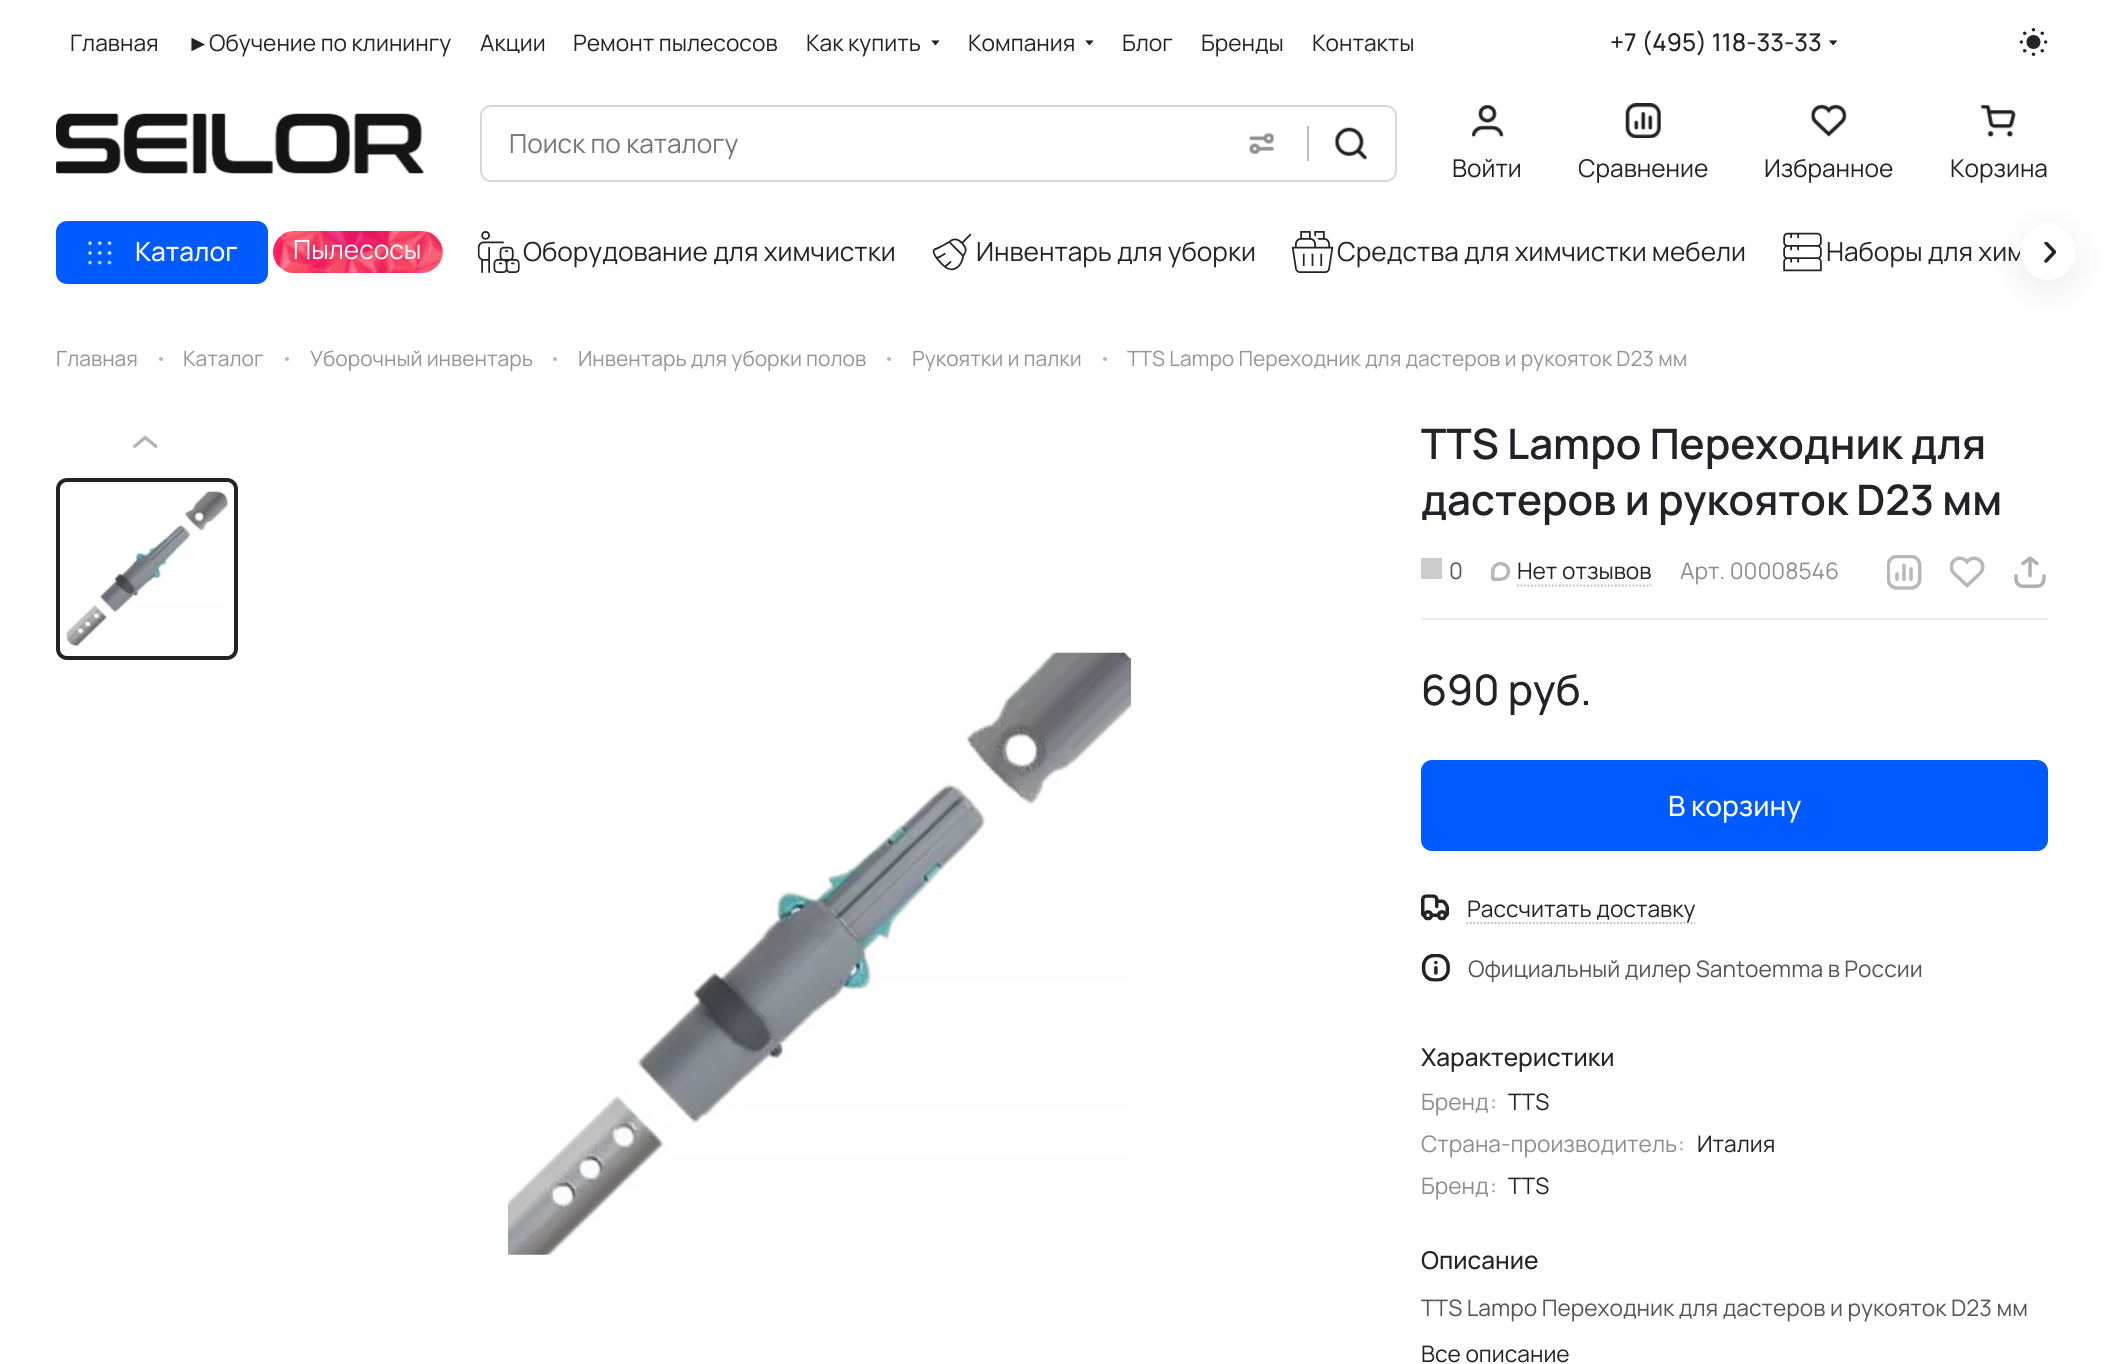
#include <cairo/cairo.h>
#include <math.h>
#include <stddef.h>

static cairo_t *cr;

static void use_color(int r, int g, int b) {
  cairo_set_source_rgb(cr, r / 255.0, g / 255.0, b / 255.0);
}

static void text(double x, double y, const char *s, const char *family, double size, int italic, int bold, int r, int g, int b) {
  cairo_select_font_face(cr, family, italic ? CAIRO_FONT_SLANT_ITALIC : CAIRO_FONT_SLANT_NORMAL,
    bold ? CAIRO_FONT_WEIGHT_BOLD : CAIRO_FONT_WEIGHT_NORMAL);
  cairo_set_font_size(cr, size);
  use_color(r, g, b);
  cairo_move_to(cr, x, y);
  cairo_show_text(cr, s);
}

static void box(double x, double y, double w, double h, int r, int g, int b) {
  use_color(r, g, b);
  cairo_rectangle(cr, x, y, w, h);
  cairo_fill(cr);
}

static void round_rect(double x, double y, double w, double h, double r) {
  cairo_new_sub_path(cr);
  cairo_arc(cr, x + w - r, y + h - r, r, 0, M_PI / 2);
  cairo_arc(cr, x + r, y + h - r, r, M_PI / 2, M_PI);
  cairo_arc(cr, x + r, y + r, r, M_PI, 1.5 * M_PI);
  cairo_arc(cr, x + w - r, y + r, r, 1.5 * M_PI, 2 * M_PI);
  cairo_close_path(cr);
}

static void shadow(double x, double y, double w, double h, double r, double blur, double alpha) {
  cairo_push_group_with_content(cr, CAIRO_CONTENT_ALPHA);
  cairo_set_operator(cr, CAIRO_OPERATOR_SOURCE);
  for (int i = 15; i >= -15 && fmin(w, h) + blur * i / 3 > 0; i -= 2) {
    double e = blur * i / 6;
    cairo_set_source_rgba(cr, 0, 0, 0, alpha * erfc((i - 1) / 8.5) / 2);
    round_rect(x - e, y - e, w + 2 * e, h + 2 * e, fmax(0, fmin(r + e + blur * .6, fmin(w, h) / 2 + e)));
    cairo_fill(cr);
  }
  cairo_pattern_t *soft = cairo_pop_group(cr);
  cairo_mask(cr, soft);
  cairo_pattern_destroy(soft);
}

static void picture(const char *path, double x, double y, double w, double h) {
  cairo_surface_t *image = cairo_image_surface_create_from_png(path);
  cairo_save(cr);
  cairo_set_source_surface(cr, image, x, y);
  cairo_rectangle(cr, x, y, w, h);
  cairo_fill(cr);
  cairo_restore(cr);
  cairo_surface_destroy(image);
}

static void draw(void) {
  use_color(255, 255, 255);
  cairo_paint(cr);
  picture("img_01.png", 931, 40, 9, 6);
  picture("img_01.png", 1085, 40, 9, 6);
  picture("img_02.png", 1829, 40, 9, 6);
  picture("img_03.png", 2019, 28, 29, 28);
  picture("img_04.png", 56, 113, 368, 61);
  round_rect(481, 106, 915, 75, 10);
  use_color(215, 216, 218);
  cairo_stroke(cr);
  picture("img_05.png", 1249, 132, 26, 22);
  box(1307, 126, 2, 35, 189, 189, 191);
  picture("img_06.png", 1334, 127, 33, 33);
  picture("img_07.png", 1472, 104, 32, 33);
  picture("img_08.png", 1625, 103, 36, 35);
  picture("img_09.png", 1810, 104, 37, 33);
  picture("img_10.png", 1980, 104, 36, 33);
  use_color(0, 91, 255);
  round_rect(57, 222, 210, 61, 10);
  cairo_fill_preserve(cr);
  cairo_stroke(cr);
  picture("img_11.png", 87, 241, 25, 24);
  picture("img_12.png", 273, 231, 170, 42);
  picture("img_13.png", 477, 231, 43, 42);
  picture("img_14.png", 932, 233, 40, 38);
  picture("img_15.png", 1291, 231, 43, 42);
  picture("img_16.png", 1783, 232, 39, 40);
  use_color(0, 0, 0);
  shadow(2020, 233, 56, 56, 28, 17.5, 0.07);
  use_color(184, 184, 185);
  cairo_arc(cr, 161, 359, 2, 0, 2 * M_PI);
  cairo_fill(cr);
  cairo_arc(cr, 287, 359, 2, 0, 2 * M_PI);
  cairo_fill(cr);
  cairo_arc(cr, 555, 359, 2, 0, 2 * M_PI);
  cairo_fill(cr);
  cairo_arc(cr, 889, 359, 2, 0, 2 * M_PI);
  cairo_fill(cr);
  cairo_arc(cr, 1105, 359, 2, 0, 2 * M_PI);
  cairo_fill(cr);
  picture("img_17.png", 132, 435, 26, 14);
  round_rect(58, 480, 178, 178, 9);
  use_color(34, 34, 40);
  cairo_set_line_width(cr, 4);
  cairo_stroke(cr);
  picture("img_18.png", 66, 491, 162, 155);
  picture("img_19.png", 508, 652, 623, 603);
  picture("img_20.png", 1424, 579, 15, 1);
  box(1421, 558, 21, 21, 204, 204, 204);
  picture("img_21.png", 1491, 562, 19, 19);
  cairo_new_path(cr);
  cairo_move_to(cr, 1517, 585.5);
  cairo_line_to(cr, 1651.5, 585.5);
  use_color(184, 184, 186);
  cairo_set_line_width(cr, 1.8);
  cairo_set_dash(cr, (double[]){1.75, 1.75}, 2, 0);
  cairo_stroke(cr);
  picture("img_22.png", 1887, 555, 35, 35);
  picture("img_23.png", 1950, 556, 35, 32);
  picture("img_24.png", 2014, 556, 32, 32);
  box(1421, 618, 627, 2, 235, 236, 239);
  use_color(0, 91, 255);
  round_rect(1422, 761, 625, 89, 10);
  cairo_fill_preserve(cr);
  cairo_set_line_width(cr, 2);
  cairo_set_dash(cr, NULL, 0, 0);
  cairo_stroke(cr);
  picture("img_25.png", 1421, 894, 28, 27);
  cairo_new_path(cr);
  cairo_move_to(cr, 1466.5, 923);
  cairo_line_to(cr, 1695, 923);
  use_color(184, 184, 186);
  cairo_set_line_width(cr, 1.8);
  cairo_set_dash(cr, (double[]){1.75, 1.75}, 2, 0);
  cairo_stroke(cr);
  picture("img_26.png", 1421, 954, 29, 28);
  text(70, 51, "Главная", "Manrope ExtraLight", 22.75, 0, 0, 34, 34, 40);
  text(187, 51, "►", "Liberation Sans", 22.75, 0, 0, 34, 34, 40);
  text(209, 51, "Обучение по клинингу", "Manrope ExtraLight", 22.75, 0, 0, 34, 34, 40);
  text(480, 51, "Акции", "Manrope ExtraLight", 22.75, 0, 0, 34, 34, 40);
  text(573, 51, "Ремонт пылесосов", "Manrope ExtraLight", 22.75, 0, 0, 34, 34, 40);
  text(806, 51, "Как купить", "Manrope ExtraLight", 22.75, 0, 0, 34, 34, 40);
  text(968, 51, "Компания", "Manrope ExtraLight", 22.75, 0, 0, 34, 34, 40);
  text(1122, 51, "Блог", "Manrope ExtraLight", 22.75, 0, 0, 34, 34, 40);
  text(1201, 51, "Бренды", "Manrope ExtraLight", 22.75, 0, 0, 34, 34, 40);
  text(1312, 51, "Контакты", "Manrope ExtraLight", 22.75, 0, 0, 34, 34, 40);
  text(1610, 51, "+7 (495) 118-33-33", "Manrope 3 ExtraLight", 24.5, 0, 0, 34, 34, 40);
  text(509, 153, "Поиск по каталогу", "Manrope ExtraLight", 26.25, 0, 0, 117, 117, 117);
  text(1452, 177, "Войти", "Manrope ExtraLight", 24.5, 0, 0, 34, 34, 40);
  cairo_save(cr);
  cairo_rectangle(cr, 1579, 138, 129, 46);
  cairo_clip(cr);
  text(1578, 177, "Сравнение", "Manrope ExtraLight", 24.5, 0, 0, 34, 34, 40);
  cairo_restore(cr);
  text(1764, 177, "Избранное", "Manrope ExtraLight", 24.5, 0, 0, 34, 34, 40);
  text(1950, 177, "Корзина", "Manrope ExtraLight", 24.5, 0, 0, 34, 34, 40);
  text(135, 261, "Каталог", "Manrope 3 ExtraLight", 26.25, 0, 0, 255, 255, 255);
  text(293, 259, "Пылесосы", "Manrope ExtraLight", 26.25, 0, 0, 255, 255, 255);
  text(523, 261, "Оборудование для химчистки", "Manrope ExtraLight", 26.25, 0, 0, 34, 34, 40);
  text(976, 261, "Инвентарь для уборки", "Manrope ExtraLight", 26.25, 0, 0, 34, 34, 40);
  text(1337, 261, "Средства для химчистки мебели", "Manrope ExtraLight", 26.25, 0, 0, 34, 34, 40);
  text(1826, 261, "Наборы для хим", "Manrope ExtraLight", 26.25, 0, 0, 34, 34, 40);
  use_color(255, 255, 255);
  cairo_new_path(cr);
  cairo_arc(cr, 2048, 252, 28, 0, 2 * M_PI);
  cairo_fill(cr);
  cairo_save(cr);
  cairo_rectangle(cr, 2044, 242, 12, 21);
  cairo_clip(cr);
  cairo_new_path(cr);
  cairo_move_to(cr, 2046, 243);
  cairo_line_to(cr, 2054.5, 252);
  cairo_line_to(cr, 2046, 261);
  use_color(34, 34, 40);
  cairo_set_line_width(cr, 3.5);
  cairo_set_line_cap(cr, CAIRO_LINE_CAP_ROUND);
  cairo_set_line_join(cr, CAIRO_LINE_JOIN_ROUND);
  cairo_set_dash(cr, NULL, 0, 0);
  cairo_stroke(cr);
  cairo_restore(cr);
  text(56, 366, "Главная", "Manrope ExtraLight", 21, 0, 0, 149, 149, 152);
  text(183, 366, "Каталог", "Manrope ExtraLight", 21, 0, 0, 149, 149, 152);
  text(310, 366, "Уборочный инвентарь", "Manrope ExtraLight", 21, 0, 0, 149, 149, 152);
  text(578, 366, "Инвентарь для уборки полов", "Manrope ExtraLight", 21, 0, 0, 149, 149, 152);
  text(912, 366, "Рукоятки и палки", "Manrope ExtraLight", 21, 0, 0, 149, 149, 152);
  text(1127, 366, "TTS Lampo Переходник для дастеров и рукояток D23 мм", "Manrope ExtraLight", 21, 0, 0, 149, 149, 152);
  text(1421, 459, "TTS Lampo Переходник для", "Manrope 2 ExtraLight", 42, 0, 0, 34, 34, 40);
  text(1421, 515, "дастеров и рукояток D23 мм", "Manrope 2 ExtraLight", 42, 0, 0, 34, 34, 40);
  text(1449, 579, "0", "Manrope ExtraLight", 22.75, 0, 0, 85, 85, 88);
  text(1517, 579, "Нет отзывов", "Manrope ExtraLight", 22.75, 0, 0, 34, 34, 40);
  text(1680, 579, "Арт. 00008546", "Manrope ExtraLight", 22.75, 0, 0, 141, 141, 141);
  text(1421, 705, "690 руб.", "Manrope 3 ExtraLight", 42, 0, 0, 34, 34, 40);
  text(1668, 816, "В корзину", "Manrope 3 ExtraLight", 28, 0, 0, 255, 255, 255);
  text(1467, 917, "Рассчитать доставку", "Manrope ExtraLight", 22.75, 0, 0, 34, 34, 40);
  text(1468, 977, "Официальный дилер Santoemma в России", "Manrope ExtraLight", 22.75, 0, 0, 85, 85, 88);
  text(1421, 1066, "Характеристики", "Manrope 3 ExtraLight", 24.5, 0, 0, 34, 34, 40);
  text(1421, 1110, "Бренд", "Manrope ExtraLight", 22.75, 0, 0, 141, 141, 141);
  text(1490, 1110, ":", "Manrope ExtraLight", 22.75, 0, 0, 141, 141, 141);
  text(1508, 1110, "TTS", "Manrope ExtraLight", 22.75, 0, 0, 34, 34, 40);
  text(1421, 1152, "Страна-производитель", "Manrope ExtraLight", 22.75, 0, 0, 141, 141, 141);
  text(1678, 1152, ":", "Manrope ExtraLight", 22.75, 0, 0, 141, 141, 141);
  text(1697, 1152, "Италия", "Manrope ExtraLight", 22.75, 0, 0, 34, 34, 40);
  text(1421, 1194, "Бренд", "Manrope ExtraLight", 22.75, 0, 0, 141, 141, 141);
  text(1490, 1194, ":", "Manrope ExtraLight", 22.75, 0, 0, 141, 141, 141);
  text(1508, 1194, "TTS", "Manrope ExtraLight", 22.75, 0, 0, 34, 34, 40);
  text(1421, 1269, "Описание", "Manrope 3 ExtraLight", 24.5, 0, 0, 34, 34, 40);
  text(1421, 1316, "TTS Lampo Переходник для дастеров и рукояток D23 мм", "Manrope ExtraLight", 22.75, 0, 0, 85, 85, 88);
  text(1421, 1362, "Все описание", "Manrope ExtraLight", 22.75, 0, 0, 34, 34, 40);
}

int main(void) {
  cairo_surface_t *surface = cairo_image_surface_create(CAIRO_FORMAT_RGB24, 2113, 1364);
  cr = cairo_create(surface);
  cairo_font_options_t *options = cairo_font_options_create();
  cairo_font_options_set_hint_metrics(options, CAIRO_HINT_METRICS_OFF);
  cairo_font_options_set_hint_style(options, CAIRO_HINT_STYLE_NONE);
  cairo_set_font_options(cr, options);
  cairo_set_miter_limit(cr, 4);
  draw();
  cairo_surface_write_to_png(surface, "out.png");
  cairo_font_options_destroy(options);
  cairo_destroy(cr);
  cairo_surface_destroy(surface);
  return 0;
}
